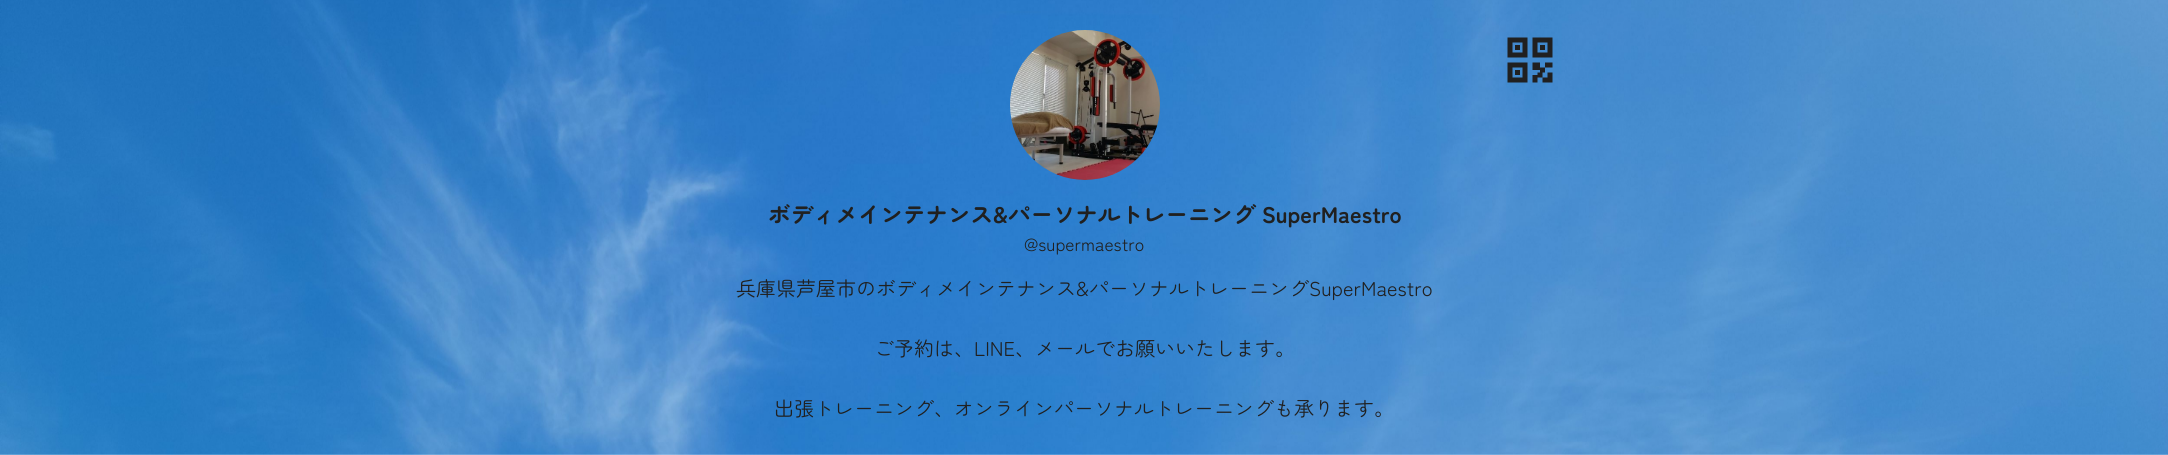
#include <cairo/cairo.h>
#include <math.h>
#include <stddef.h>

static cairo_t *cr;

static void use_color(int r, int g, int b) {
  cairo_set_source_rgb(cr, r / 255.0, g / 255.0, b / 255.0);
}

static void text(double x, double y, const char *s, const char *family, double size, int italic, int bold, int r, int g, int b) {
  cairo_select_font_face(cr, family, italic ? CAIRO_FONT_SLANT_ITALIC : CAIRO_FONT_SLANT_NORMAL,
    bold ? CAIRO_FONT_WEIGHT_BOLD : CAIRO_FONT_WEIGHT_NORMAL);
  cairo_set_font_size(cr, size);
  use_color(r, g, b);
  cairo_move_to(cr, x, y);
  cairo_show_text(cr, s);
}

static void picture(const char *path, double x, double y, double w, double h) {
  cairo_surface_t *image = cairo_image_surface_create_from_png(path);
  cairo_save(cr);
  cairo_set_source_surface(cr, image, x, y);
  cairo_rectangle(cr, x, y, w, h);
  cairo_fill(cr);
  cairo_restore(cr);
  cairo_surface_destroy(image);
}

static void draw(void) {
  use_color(255, 255, 255);
  cairo_paint(cr);
  picture("img_01.png", 0, 0, 2168, 455);
  picture("img_02.png", 1507, 37, 46, 46);
  picture("img_03.png", 1010, 30, 150, 150);
  text(768, 223, "ボディメインテナンス&パーソナルトレーニング SuperMaestro", "Zen Maru Gothic", 22.5, 0, 1, 32, 32, 32);
  text(1024, 251, "@supermaestro", "Zen Maru Gothic", 17.5, 0, 0, 32, 32, 32);
  text(736, 296, "兵庫県芦屋市のボディメインテナンス&パーソナルトレーニングSuperMaestro", "Zen Maru Gothic", 20, 0, 0, 32, 32, 32);
  text(874, 356, "ご予約は、LINE、メールでお願いいたします。", "Zen Maru Gothic", 20, 0, 0, 32, 32, 32);
  text(774, 416, "出張トレーニング、オンラインパーソナルトレーニングも承ります。", "Zen Maru Gothic", 20, 0, 0, 32, 32, 32);
}

int main(void) {
  cairo_surface_t *surface = cairo_image_surface_create(CAIRO_FORMAT_RGB24, 2168, 455);
  cr = cairo_create(surface);
  cairo_font_options_t *options = cairo_font_options_create();
  cairo_font_options_set_hint_metrics(options, CAIRO_HINT_METRICS_OFF);
  cairo_font_options_set_hint_style(options, CAIRO_HINT_STYLE_NONE);
  cairo_set_font_options(cr, options);
  cairo_set_miter_limit(cr, 4);
  draw();
  cairo_surface_write_to_png(surface, "out.png");
  cairo_font_options_destroy(options);
  cairo_destroy(cr);
  cairo_surface_destroy(surface);
  return 0;
}
